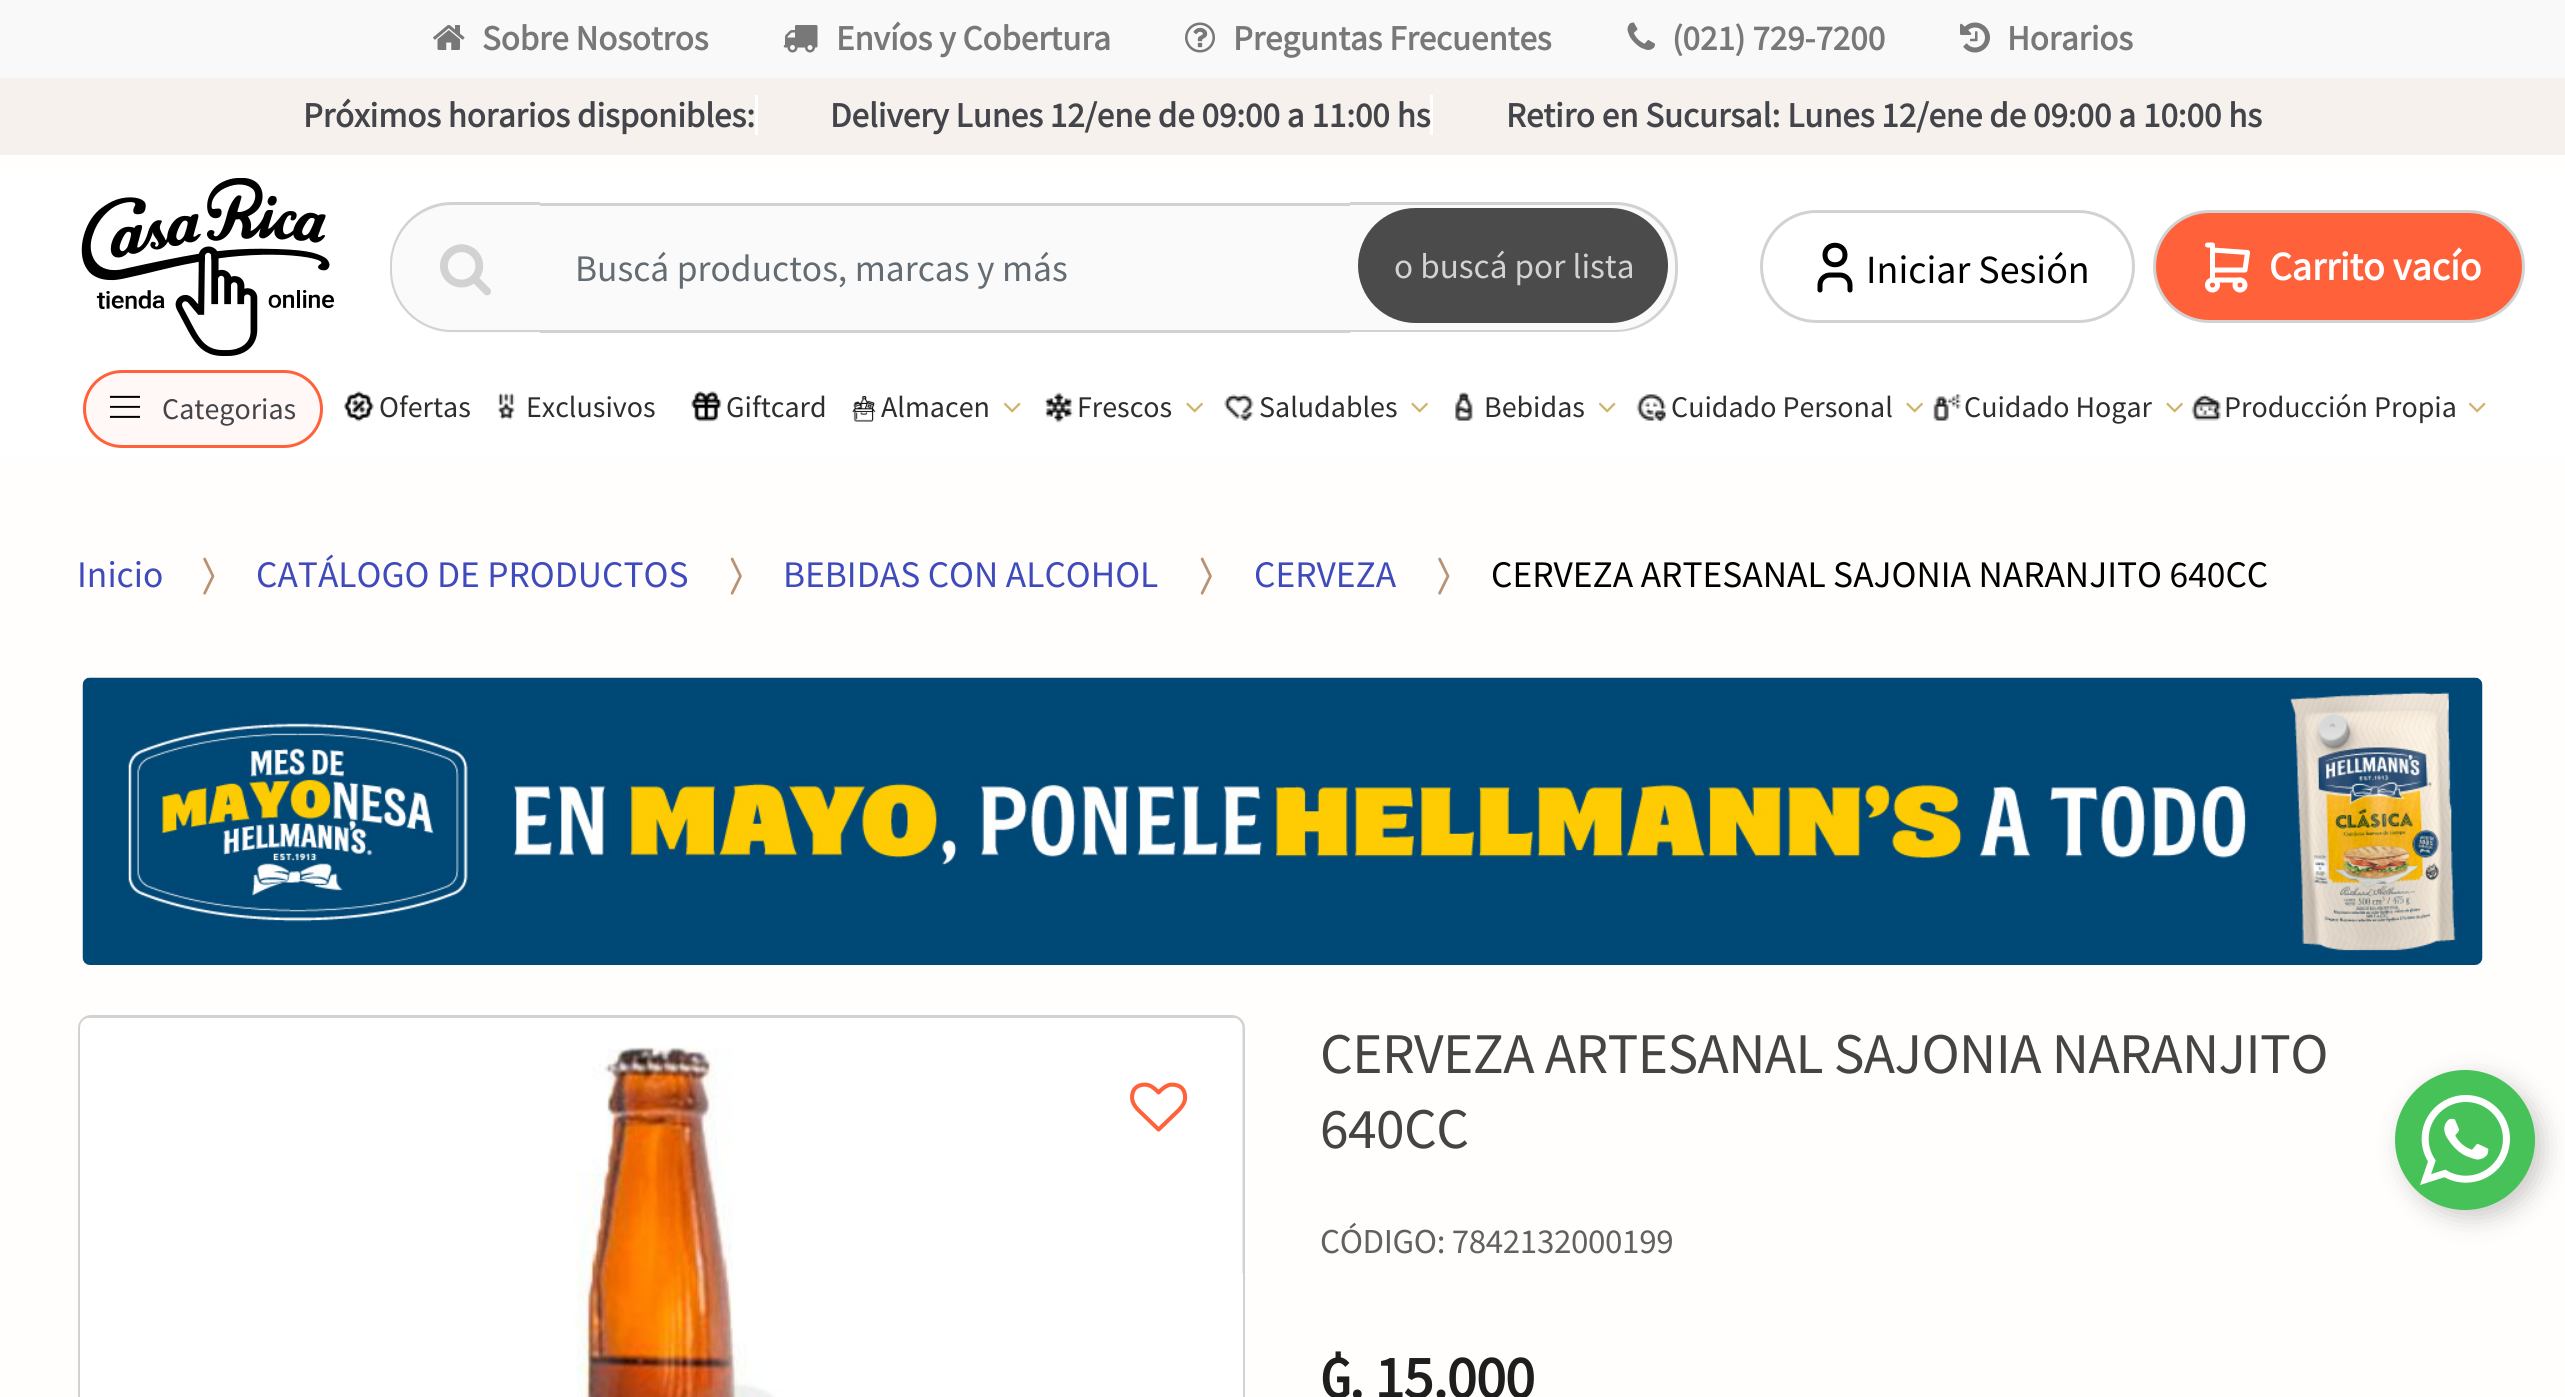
#include <cairo/cairo.h>
#include <math.h>
#include <stddef.h>

static cairo_t *cr;

static void use_color(int r, int g, int b) {
  cairo_set_source_rgb(cr, r / 255.0, g / 255.0, b / 255.0);
}

static void text(double x, double y, const char *s, const char *family, double size, int italic, int bold, int r, int g, int b) {
  cairo_select_font_face(cr, family, italic ? CAIRO_FONT_SLANT_ITALIC : CAIRO_FONT_SLANT_NORMAL,
    bold ? CAIRO_FONT_WEIGHT_BOLD : CAIRO_FONT_WEIGHT_NORMAL);
  cairo_set_font_size(cr, size);
  use_color(r, g, b);
  cairo_move_to(cr, x, y);
  cairo_show_text(cr, s);
}

static void spaced_text(double x, double y, const char *s, double letter, double word) {
  cairo_move_to(cr, x, y);
  while (*s) {
    char ch[5] = {0};
    int n = 0;
    do ch[n++] = *s++; while ((*s & 0xC0) == 0x80);
    cairo_show_text(cr, ch);
    cairo_rel_move_to(cr, letter + word * (*ch == ' '), 0);
  }
}

static void box(double x, double y, double w, double h, int r, int g, int b) {
  use_color(r, g, b);
  cairo_rectangle(cr, x, y, w, h);
  cairo_fill(cr);
}

static void round_rect(double x, double y, double w, double h, double r) {
  cairo_new_sub_path(cr);
  cairo_arc(cr, x + w - r, y + h - r, r, 0, M_PI / 2);
  cairo_arc(cr, x + r, y + h - r, r, M_PI / 2, M_PI);
  cairo_arc(cr, x + r, y + r, r, M_PI, 1.5 * M_PI);
  cairo_arc(cr, x + w - r, y + r, r, 1.5 * M_PI, 2 * M_PI);
  cairo_close_path(cr);
}

static void shadow(double x, double y, double w, double h, double r, double blur, double alpha) {
  cairo_push_group_with_content(cr, CAIRO_CONTENT_ALPHA);
  cairo_set_operator(cr, CAIRO_OPERATOR_SOURCE);
  for (int i = 15; i >= -15 && fmin(w, h) + blur * i / 3 > 0; i -= 2) {
    double e = blur * i / 6;
    cairo_set_source_rgba(cr, 0, 0, 0, alpha * erfc((i - 1) / 8.5) / 2);
    round_rect(x - e, y - e, w + 2 * e, h + 2 * e, fmax(0, fmin(r + e + blur * .6, fmin(w, h) / 2 + e)));
    cairo_fill(cr);
  }
  cairo_pattern_t *soft = cairo_pop_group(cr);
  cairo_mask(cr, soft);
  cairo_pattern_destroy(soft);
}

static void picture(const char *path, double x, double y, double w, double h) {
  cairo_surface_t *image = cairo_image_surface_create_from_png(path);
  cairo_save(cr);
  cairo_set_source_surface(cr, image, x, y);
  cairo_rectangle(cr, x, y, w, h);
  cairo_fill(cr);
  cairo_restore(cr);
  cairo_surface_destroy(image);
}

static void draw(void) {
  use_color(255, 254, 252);
  cairo_paint(cr);
  box(0, 0, 2565, 78, 249, 249, 249);
  picture("img_01.png", 433, 25, 32, 25);
  picture("img_02.png", 783, 25, 35, 28);
  picture("img_03.png", 1185, 22, 30, 31);
  picture("img_04.png", 1627, 22, 28, 28);
  picture("img_05.png", 1960, 22, 30, 31);
  box(0, 78, 2565, 77, 246, 241, 237);
  box(755, 95, 3, 40, 255, 255, 255);
  box(1430, 95, 3, 40, 255, 255, 255);
  box(0, 168, 2565, 290, 255, 255, 255);
  picture("img_06.png", 81, 178, 253, 178);
  box(538, 203, 812, 3, 210, 210, 210);
  box(538, 330, 812, 3, 210, 210, 210);
  use_color(250, 250, 250);
  cairo_new_path(cr);
  cairo_move_to(cr, 453, 203);
  cairo_line_to(cr, 540, 203);
  cairo_line_to(cr, 540, 333);
  cairo_line_to(cr, 453, 333);
  cairo_curve_to(cr, 418, 333, 390, 305, 390, 270);
  cairo_line_to(cr, 390, 266);
  cairo_curve_to(cr, 390, 231, 418, 203, 453, 203);
  cairo_close_path(cr);
  cairo_fill(cr);
  use_color(210, 210, 210);
  cairo_set_fill_rule(cr, CAIRO_FILL_RULE_EVEN_ODD);
  cairo_new_path(cr);
  cairo_move_to(cr, 452, 202);
  cairo_line_to(cr, 540, 202);
  cairo_line_to(cr, 540, 332);
  cairo_line_to(cr, 452, 332);
  cairo_curve_to(cr, 418, 332, 390, 305, 390, 270);
  cairo_line_to(cr, 390, 265);
  cairo_curve_to(cr, 390, 230, 418, 202, 452, 202);
  cairo_close_path(cr);
  cairo_move_to(cr, 452, 205);
  cairo_line_to(cr, 540, 205);
  cairo_line_to(cr, 540, 330);
  cairo_line_to(cr, 452, 330);
  cairo_curve_to(cr, 419, 330, 392, 303, 392, 270);
  cairo_line_to(cr, 392, 265);
  cairo_curve_to(cr, 392, 232, 419, 205, 452, 205);
  cairo_close_path(cr);
  cairo_fill(cr);
  picture("img_07.png", 440, 244, 51, 52);
  box(540, 206, 810, 124, 250, 250, 250);
  cairo_new_path(cr);
  cairo_move_to(cr, 1350, 205);
  cairo_line_to(cr, 1615, 205);
  cairo_curve_to(cr, 1648, 205, 1675, 232, 1675, 265);
  cairo_line_to(cr, 1675, 270);
  cairo_curve_to(cr, 1675, 303, 1648, 330, 1615, 330);
  cairo_line_to(cr, 1350, 330);
  cairo_close_path(cr);
  cairo_fill(cr);
  use_color(210, 210, 210);
  cairo_new_path(cr);
  cairo_move_to(cr, 1350, 202);
  cairo_line_to(cr, 1615, 202);
  cairo_curve_to(cr, 1650, 202, 1678, 230, 1678, 265);
  cairo_line_to(cr, 1678, 270);
  cairo_curve_to(cr, 1678, 305, 1650, 332, 1615, 332);
  cairo_line_to(cr, 1350, 332);
  cairo_close_path(cr);
  cairo_move_to(cr, 1350, 205);
  cairo_line_to(cr, 1615, 205);
  cairo_curve_to(cr, 1648, 205, 1675, 232, 1675, 265);
  cairo_line_to(cr, 1675, 270);
  cairo_curve_to(cr, 1675, 303, 1648, 330, 1615, 330);
  cairo_line_to(cr, 1350, 330);
  cairo_close_path(cr);
  cairo_fill(cr);
  use_color(75, 75, 75);
  round_rect(1358, 208, 310, 115, 57.5);
  cairo_fill(cr);
  round_rect(1761.5, 211.5, 372, 110, 55);
  use_color(210, 210, 210);
  cairo_set_line_width(cr, 3);
  cairo_stroke(cr);
  cairo_new_path(cr);
  cairo_move_to(cr, 1825, 255);
  cairo_curve_to(cr, 1825, 268, 1845, 268, 1845, 255);
  cairo_curve_to(cr, 1845, 242, 1825, 242, 1825, 255);
  cairo_move_to(cr, 1820, 290);
  cairo_line_to(cr, 1820, 285);
  cairo_curve_to(cr, 1820, 279.5, 1824.5, 275, 1830, 275);
  cairo_line_to(cr, 1840, 275);
  cairo_curve_to(cr, 1845.5, 275, 1850, 279.5, 1850, 285);
  cairo_line_to(cr, 1850, 290);
  use_color(0, 0, 0);
  cairo_set_line_width(cr, 5);
  cairo_set_line_cap(cr, CAIRO_LINE_CAP_ROUND);
  cairo_set_line_join(cr, CAIRO_LINE_JOIN_ROUND);
  cairo_stroke(cr);
  use_color(255, 98, 59);
  round_rect(2154.5, 211.5, 369, 110, 55);
  cairo_fill_preserve(cr);
  use_color(210, 210, 210);
  cairo_set_line_width(cr, 3);
  cairo_set_line_cap(cr, CAIRO_LINE_CAP_BUTT);
  cairo_set_line_join(cr, CAIRO_LINE_JOIN_MITER);
  cairo_stroke(cr);
  picture("img_08.png", 2205, 242, 45, 51);
  use_color(255, 248, 246);
  round_rect(84.5, 371.5, 237, 75, 37.5);
  cairo_fill_preserve(cr);
  use_color(255, 98, 59);
  cairo_stroke(cr);
  picture("img_09.png", 110, 395, 30, 23);
  picture("img_10.png", 343, 391, 31, 31);
  picture("img_11.png", 498, 393, 17, 27);
  picture("img_12.png", 691, 391, 31, 31);
  picture("img_13.png", 852, 396, 24, 26);
  picture("img_14.png", 1003, 402, 18, 11);
  picture("img_15.png", 1044, 392, 30, 31);
  picture("img_16.png", 1186, 402, 17, 11);
  picture("img_17.png", 1224, 394, 30, 27);
  picture("img_16.png", 1411, 402, 17, 11);
  picture("img_18.png", 1455, 392, 18, 29);
  picture("img_14.png", 1598, 402, 18, 11);
  picture("img_19.png", 1636, 394, 30, 29);
  picture("img_16.png", 1906, 402, 17, 11);
  picture("img_20.png", 1933, 394, 28, 27);
  picture("img_16.png", 2166, 402, 17, 11);
  picture("img_21.png", 2191, 394, 30, 27);
  picture("img_14.png", 2468, 402, 18, 11);
  picture("img_22.png", 203, 557, 12, 38);
  picture("img_23.png", 730, 557, 12, 38);
  picture("img_23.png", 1200, 557, 12, 38);
  picture("img_22.png", 1438, 557, 12, 38);
  picture("img_24.png", 82, 677, 2401, 288);
  round_rect(79.5, 1016.5, 1164, 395, 11.5);
  use_color(210, 210, 210);
  cairo_stroke(cr);
  picture("img_25.png", 80, 1018, 1163, 379);
  picture("img_26.png", 1130, 1082, 58, 50);
  use_color(0, 0, 0);
  shadow(2403, 1078, 140, 140, 70, 12.5, 0.2);
  use_color(71, 194, 88);
  cairo_arc(cr, 2465, 1140, 70, 0, 2 * M_PI);
  cairo_fill(cr);
  picture("img_27.png", 2420, 1095, 90, 90);
  text(482, 50, "Sobre Nosotros", "Source Sans Pro", 35, 0, 1, 120, 120, 120);
  text(836, 50, "Envíos y Cobertura", "Source Sans Pro", 35, 0, 1, 120, 120, 120);
  text(1233, 50, "Preguntas Frecuentes", "Source Sans Pro", 35, 0, 1, 120, 120, 120);
  text(1672, 50, "(021) 729-7200", "Source Sans Pro", 35, 0, 1, 120, 120, 120);
  text(2007, 50, "Horarios", "Source Sans Pro", 35, 0, 1, 120, 120, 120);
  text(303, 127, "Próximos horarios disponibles:", "Source Sans Pro", 35, 0, 1, 67, 69, 75);
  text(830, 127, "Delivery Lunes 12/ene de 09:00 a 11:00 hs", "Source Sans Pro", 35, 0, 1, 67, 69, 75);
  text(1506, 127, "Retiro en Sucursal: Lunes 12/ene de 09:00 a 10:00 hs", "Source Sans Pro", 35, 0, 1, 67, 69, 75);
  text(575, 281, "Buscá productos, marcas y más", "Source Sans Pro", 37.5, 0, 0, 99, 108, 114);
  text(1394, 278, "o buscá por lista", "Source Sans Pro", 35.25, 0, 0, 210, 210, 210);
  text(1866, 283, "Iniciar Sesión", "Source Sans Pro", 40, 0, 0, 0, 0, 0);
  text(2269, 280, "Carrito vacío", "Source Sans Pro", 40, 0, 1, 255, 255, 255);
  text(162, 419, "Categorias", "Source Sans Pro", 30, 0, 0, 67, 69, 75);
  text(379, 417, "Ofertas", "Source Sans Pro", 30, 0, 0, 47, 46, 44);
  text(526, 417, "Exclusivos", "Source Sans Pro", 30, 0, 0, 47, 46, 44);
  text(726, 417, "Giftcard", "Source Sans Pro", 30, 0, 0, 47, 46, 44);
  text(881, 417, "Almacen", "Source Sans Pro", 30, 0, 0, 47, 46, 44);
  text(1077, 417, "Frescos", "Source Sans Pro", 30, 0, 0, 47, 46, 44);
  text(1259, 417, "Saludables", "Source Sans Pro", 30, 0, 0, 47, 46, 44);
  text(1484, 417, "Bebidas", "Source Sans Pro", 30, 0, 0, 47, 46, 44);
  text(1671, 417, "Cuidado Personal", "Source Sans Pro", 30, 0, 0, 47, 46, 44);
  text(1964, 417, "Cuidado Hogar", "Source Sans Pro", 30, 0, 0, 47, 46, 44);
  text(2224, 417, "Producción Propia", "Source Sans Pro", 30, 0, 0, 47, 46, 44);
  text(77, 587, "Inicio", "Source Sans Pro", 37.5, 0, 0, 63, 75, 188);
  text(256, 587, "CATÁLOGO DE PRODUCTOS", "Source Sans Pro", 37.5, 0, 0, 63, 75, 188);
  text(783, 587, "BEBIDAS CON ALCOHOL", "Source Sans Pro", 37.5, 0, 0, 63, 75, 188);
  text(1254, 587, "CERVEZA", "Source Sans Pro", 37.5, 0, 0, 63, 75, 188);
  text(1491, 587, "CERVEZA ARTESANAL SAJONIA NARANJITO 640CC", "Source Sans Pro", 37.5, 0, 0, 0, 0, 0);
  cairo_set_font_size(cr, 57.5);
  use_color(68, 68, 68);
  spaced_text(1320, 1073, "CERVEZA ARTESANAL SAJONIA NARANJITO", -0.6, 0);
  spaced_text(1320, 1148, "640CC", -0.6, 0);
  cairo_set_font_size(cr, 35);
  use_color(98, 96, 96);
  spaced_text(1320, 1253, "CÓDIGO: 7842132000199", -0.35, 0);
  cairo_select_font_face(cr, "Source Sans Pro", CAIRO_FONT_SLANT_NORMAL, CAIRO_FONT_WEIGHT_BOLD);
  cairo_set_font_size(cr, 60);
  use_color(30, 30, 30);
  spaced_text(1320, 1398, "₲. 15.000", -0.75, 0);
}

int main(void) {
  cairo_surface_t *surface = cairo_image_surface_create(CAIRO_FORMAT_RGB24, 2565, 1397);
  cr = cairo_create(surface);
  cairo_font_options_t *options = cairo_font_options_create();
  cairo_font_options_set_hint_metrics(options, CAIRO_HINT_METRICS_OFF);
  cairo_font_options_set_hint_style(options, CAIRO_HINT_STYLE_NONE);
  cairo_set_font_options(cr, options);
  cairo_set_miter_limit(cr, 4);
  draw();
  cairo_surface_write_to_png(surface, "out.png");
  cairo_font_options_destroy(options);
  cairo_destroy(cr);
  cairo_surface_destroy(surface);
  return 0;
}
